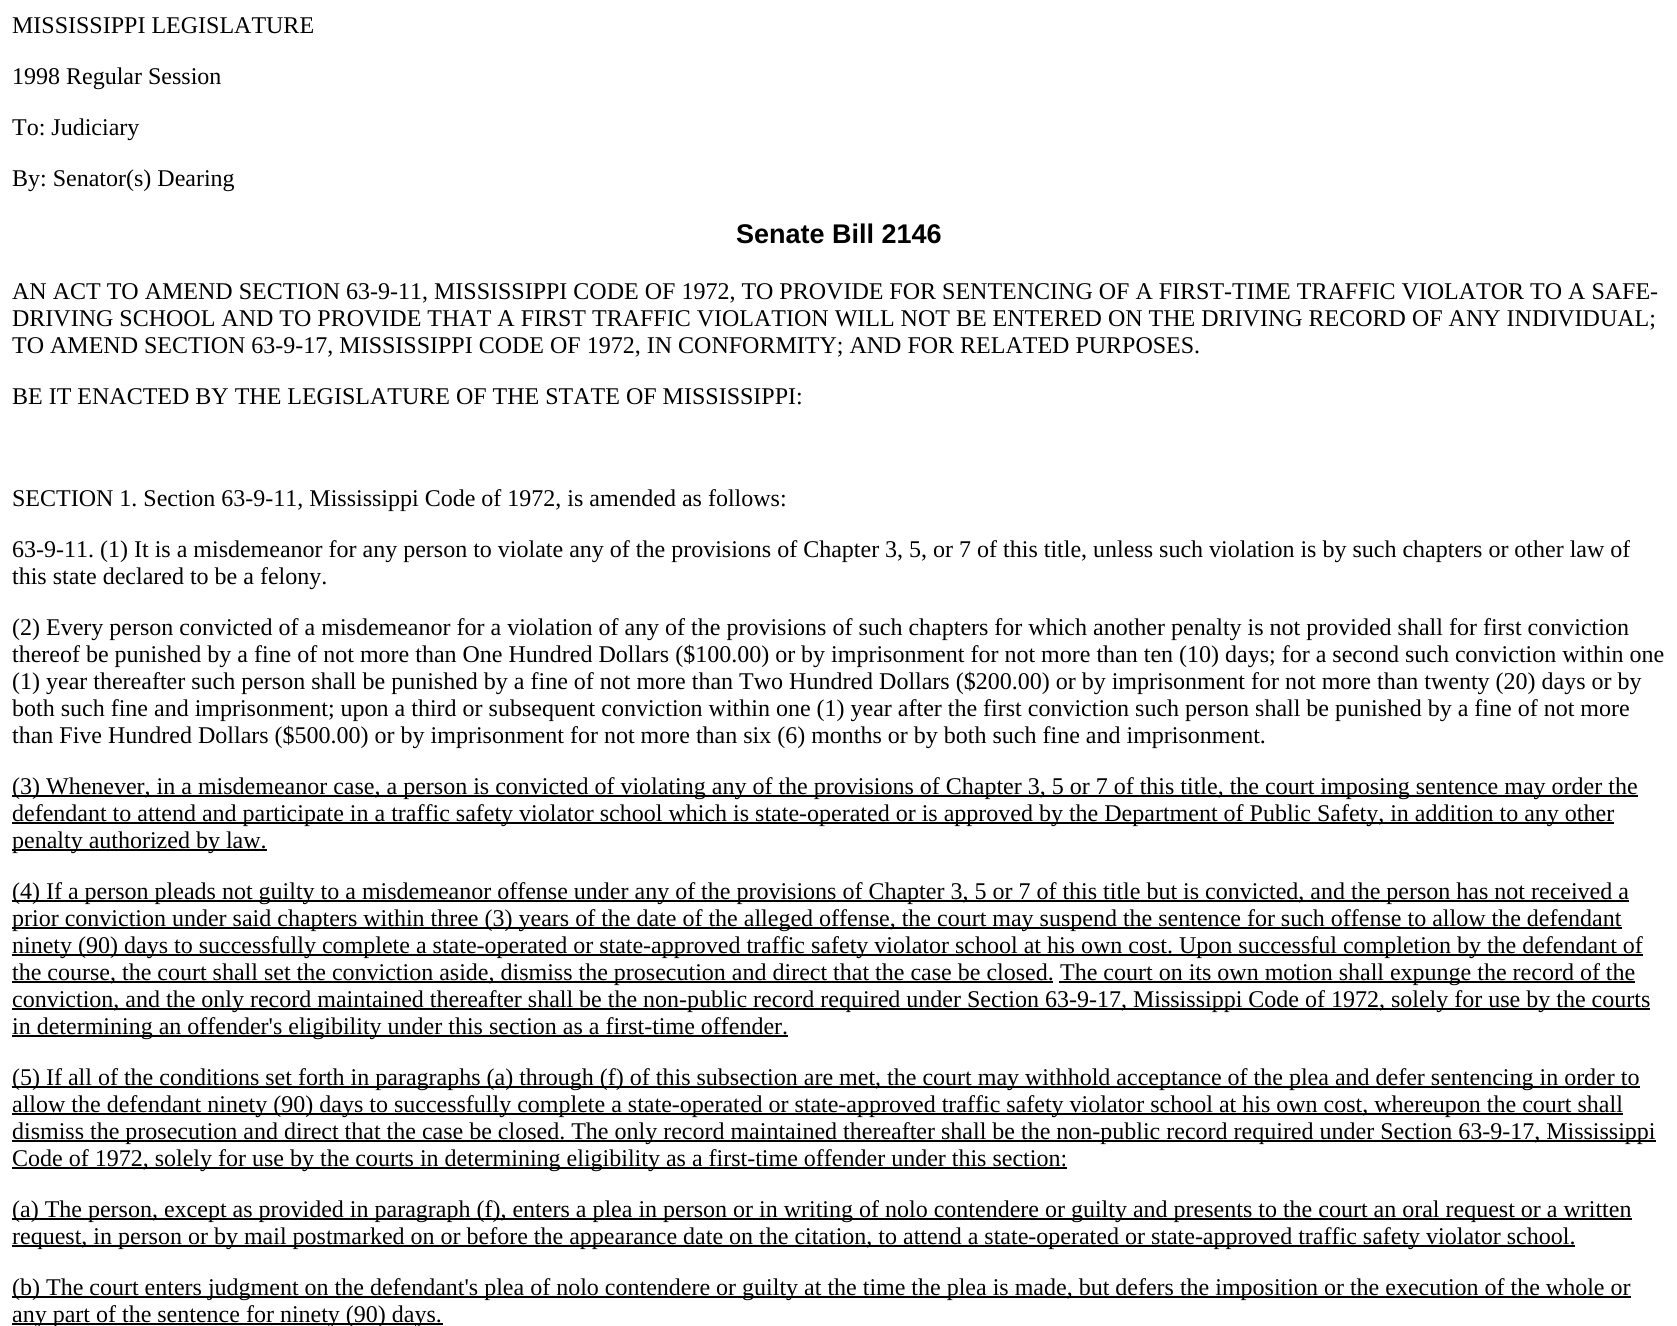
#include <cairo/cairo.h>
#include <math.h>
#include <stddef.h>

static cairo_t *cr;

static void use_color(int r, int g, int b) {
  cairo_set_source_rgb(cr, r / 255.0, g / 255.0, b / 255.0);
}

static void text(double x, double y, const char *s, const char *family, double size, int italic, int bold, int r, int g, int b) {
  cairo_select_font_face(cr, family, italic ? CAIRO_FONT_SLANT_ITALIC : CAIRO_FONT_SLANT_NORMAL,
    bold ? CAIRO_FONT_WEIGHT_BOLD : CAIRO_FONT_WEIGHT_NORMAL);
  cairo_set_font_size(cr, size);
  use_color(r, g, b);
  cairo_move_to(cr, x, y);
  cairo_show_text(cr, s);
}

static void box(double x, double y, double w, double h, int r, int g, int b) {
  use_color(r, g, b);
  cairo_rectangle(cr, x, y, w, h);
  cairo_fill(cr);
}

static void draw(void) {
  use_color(255, 255, 255);
  cairo_paint(cr);
  box(12, 795, 1626, 2, 0, 0, 0);
  box(12, 822, 1602, 2, 0, 0, 0);
  box(12, 849, 255, 2, 0, 0, 0);
  box(12, 900, 1617, 2, 0, 0, 0);
  box(12, 927, 1610, 2, 0, 0, 0);
  box(12, 954, 1631, 2, 0, 0, 0);
  box(12, 981, 1041, 2, 0, 0, 0);
  box(1059, 981, 576, 2, 0, 0, 0);
  box(12, 1008, 1638, 2, 0, 0, 0);
  box(12, 1035, 776, 2, 0, 0, 0);
  box(12, 1086, 1628, 2, 0, 0, 0);
  box(12, 1113, 1611, 2, 0, 0, 0);
  box(12, 1140, 1644, 2, 0, 0, 0);
  box(12, 1167, 1055, 2, 0, 0, 0);
  box(12, 1218, 1620, 2, 0, 0, 0);
  box(12, 1245, 1563, 2, 0, 0, 0);
  box(12, 1296, 1619, 2, 0, 0, 0);
  box(12, 1323, 431, 2, 0, 0, 0);
  text(12, 33, "MISSISSIPPI LEGISLATURE", "Liberation Serif", 24, 0, 0, 0, 0, 0);
  text(12, 84, "1998 Regular Session", "Liberation Serif", 24, 0, 0, 0, 0, 0);
  text(12, 135, "To: Judiciary", "Liberation Serif", 24, 0, 0, 0, 0, 0);
  text(12, 186, "By: Senator(s) Dearing", "Liberation Serif", 24, 0, 0, 0, 0, 0);
  text(736, 243, "Senate Bill 2146", "Liberation Sans", 27, 0, 1, 0, 0, 0);
  text(12, 299, "AN ACT TO AMEND SECTION 63-9-11, MISSISSIPPI CODE OF 1972, TO PROVIDE FOR SENTENCING OF A FIRST-TIME TRAFFIC VIOLATOR TO A SAFE-", "Liberation Serif", 24, 0, 0, 0, 0, 0);
  text(12, 326, "DRIVING SCHOOL AND TO PROVIDE THAT A FIRST TRAFFIC VIOLATION WILL NOT BE ENTERED ON THE DRIVING RECORD OF ANY INDIVIDUAL;", "Liberation Serif", 24, 0, 0, 0, 0, 0);
  text(12, 353, "TO AMEND SECTION 63-9-17, MISSISSIPPI CODE OF 1972, IN CONFORMITY; AND FOR RELATED PURPOSES.", "Liberation Serif", 24, 0, 0, 0, 0, 0);
  text(12, 404, "BE IT ENACTED BY THE LEGISLATURE OF THE STATE OF MISSISSIPPI:", "Liberation Serif", 24, 0, 0, 0, 0, 0);
  text(12, 506, "SECTION 1. Section 63-9-11, Mississippi Code of 1972, is amended as follows:", "Liberation Serif", 24, 0, 0, 0, 0, 0);
  text(12, 557, "63-9-11. (1) It is a misdemeanor for any person to violate any of the provisions of Chapter 3, 5, or 7 of this title, unless such violation is by such chapters or other law of", "Liberation Serif", 24, 0, 0, 0, 0, 0);
  text(12, 584, "this state declared to be a felony.", "Liberation Serif", 24, 0, 0, 0, 0, 0);
  text(12, 635, "(2) Every person convicted of a misdemeanor for a violation of any of the provisions of such chapters for which another penalty is not provided shall for first conviction", "Liberation Serif", 24, 0, 0, 0, 0, 0);
  text(12, 662, "thereof be punished by a fine of not more than One Hundred Dollars ($100.00) or by imprisonment for not more than ten (10) days; for a second such conviction within one", "Liberation Serif", 24, 0, 0, 0, 0, 0);
  text(12, 689, "(1) year thereafter such person shall be punished by a fine of not more than Two Hundred Dollars ($200.00) or by imprisonment for not more than twenty (20) days or by", "Liberation Serif", 24, 0, 0, 0, 0, 0);
  text(12, 716, "both such fine and imprisonment; upon a third or subsequent conviction within one (1) year after the first conviction such person shall be punished by a fine of not more", "Liberation Serif", 24, 0, 0, 0, 0, 0);
  text(12, 743, "than Five Hundred Dollars ($500.00) or by imprisonment for not more than six (6) months or by both such fine and imprisonment.", "Liberation Serif", 24, 0, 0, 0, 0, 0);
  text(12, 794, "(3) Whenever, in a misdemeanor case, a person is convicted of violating any of the provisions of Chapter 3, 5 or 7 of this title, the court imposing sentence may order the", "Liberation Serif", 24, 0, 0, 0, 0, 0);
  text(12, 821, "defendant to attend and participate in a traffic safety violator school which is state-operated or is approved by the Department of Public Safety, in addition to any other", "Liberation Serif", 24, 0, 0, 0, 0, 0);
  text(12, 848, "penalty authorized by law.", "Liberation Serif", 24, 0, 0, 0, 0, 0);
  text(12, 899, "(4) If a person pleads not guilty to a misdemeanor offense under any of the provisions of Chapter 3, 5 or 7 of this title but is convicted, and the person has not received a", "Liberation Serif", 24, 0, 0, 0, 0, 0);
  text(12, 926, "prior conviction under said chapters within three (3) years of the date of the alleged offense, the court may suspend the sentence for such offense to allow the defendant", "Liberation Serif", 24, 0, 0, 0, 0, 0);
  text(12, 953, "ninety (90) days to successfully complete a state-operated or state-approved traffic safety violator school at his own cost. Upon successful completion by the defendant of", "Liberation Serif", 24, 0, 0, 0, 0, 0);
  text(12, 980, "the course, the court shall set the conviction aside, dismiss the prosecution and direct that the case be closed.", "Liberation Serif", 24, 0, 0, 0, 0, 0);
  text(1060, 980, "The court on its own motion shall expunge the record of the", "Liberation Serif", 24, 0, 0, 0, 0, 0);
  text(12, 1007, "conviction, and the only record maintained thereafter shall be the non-public record required under Section 63-9-17, Mississippi Code of 1972, solely for use by the courts", "Liberation Serif", 24, 0, 0, 0, 0, 0);
  text(12, 1034, "in determining an offender's eligibility under this section as a first-time offender.", "Liberation Serif", 24, 0, 0, 0, 0, 0);
  text(12, 1085, "(5) If all of the conditions set forth in paragraphs (a) through (f) of this subsection are met, the court may withhold acceptance of the plea and defer sentencing in order to", "Liberation Serif", 24, 0, 0, 0, 0, 0);
  text(12, 1112, "allow the defendant ninety (90) days to successfully complete a state-operated or state-approved traffic safety violator school at his own cost, whereupon the court shall", "Liberation Serif", 24, 0, 0, 0, 0, 0);
  text(12, 1139, "dismiss the prosecution and direct that the case be closed. The only record maintained thereafter shall be the non-public record required under Section 63-9-17, Mississippi", "Liberation Serif", 24, 0, 0, 0, 0, 0);
  text(12, 1166, "Code of 1972, solely for use by the courts in determining eligibility as a first-time offender under this section:", "Liberation Serif", 24, 0, 0, 0, 0, 0);
  text(12, 1217, "(a) The person, except as provided in paragraph (f), enters a plea in person or in writing of nolo contendere or guilty and presents to the court an oral request or a written", "Liberation Serif", 24, 0, 0, 0, 0, 0);
  text(12, 1244, "request, in person or by mail postmarked on or before the appearance date on the citation, to attend a state-operated or state-approved traffic safety violator school.", "Liberation Serif", 24, 0, 0, 0, 0, 0);
  text(12, 1295, "(b) The court enters judgment on the defendant's plea of nolo contendere or guilty at the time the plea is made, but defers the imposition or the execution of the whole or", "Liberation Serif", 24, 0, 0, 0, 0, 0);
  text(12, 1322, "any part of the sentence for ninety (90) days.", "Liberation Serif", 24, 0, 0, 0, 0, 0);
}

int main(void) {
  cairo_surface_t *surface = cairo_image_surface_create(CAIRO_FORMAT_RGB24, 1677, 1326);
  cr = cairo_create(surface);
  cairo_font_options_t *options = cairo_font_options_create();
  cairo_font_options_set_hint_metrics(options, CAIRO_HINT_METRICS_OFF);
  cairo_font_options_set_hint_style(options, CAIRO_HINT_STYLE_NONE);
  cairo_set_font_options(cr, options);
  cairo_set_miter_limit(cr, 4);
  draw();
  cairo_surface_write_to_png(surface, "out.png");
  cairo_font_options_destroy(options);
  cairo_destroy(cr);
  cairo_surface_destroy(surface);
  return 0;
}
